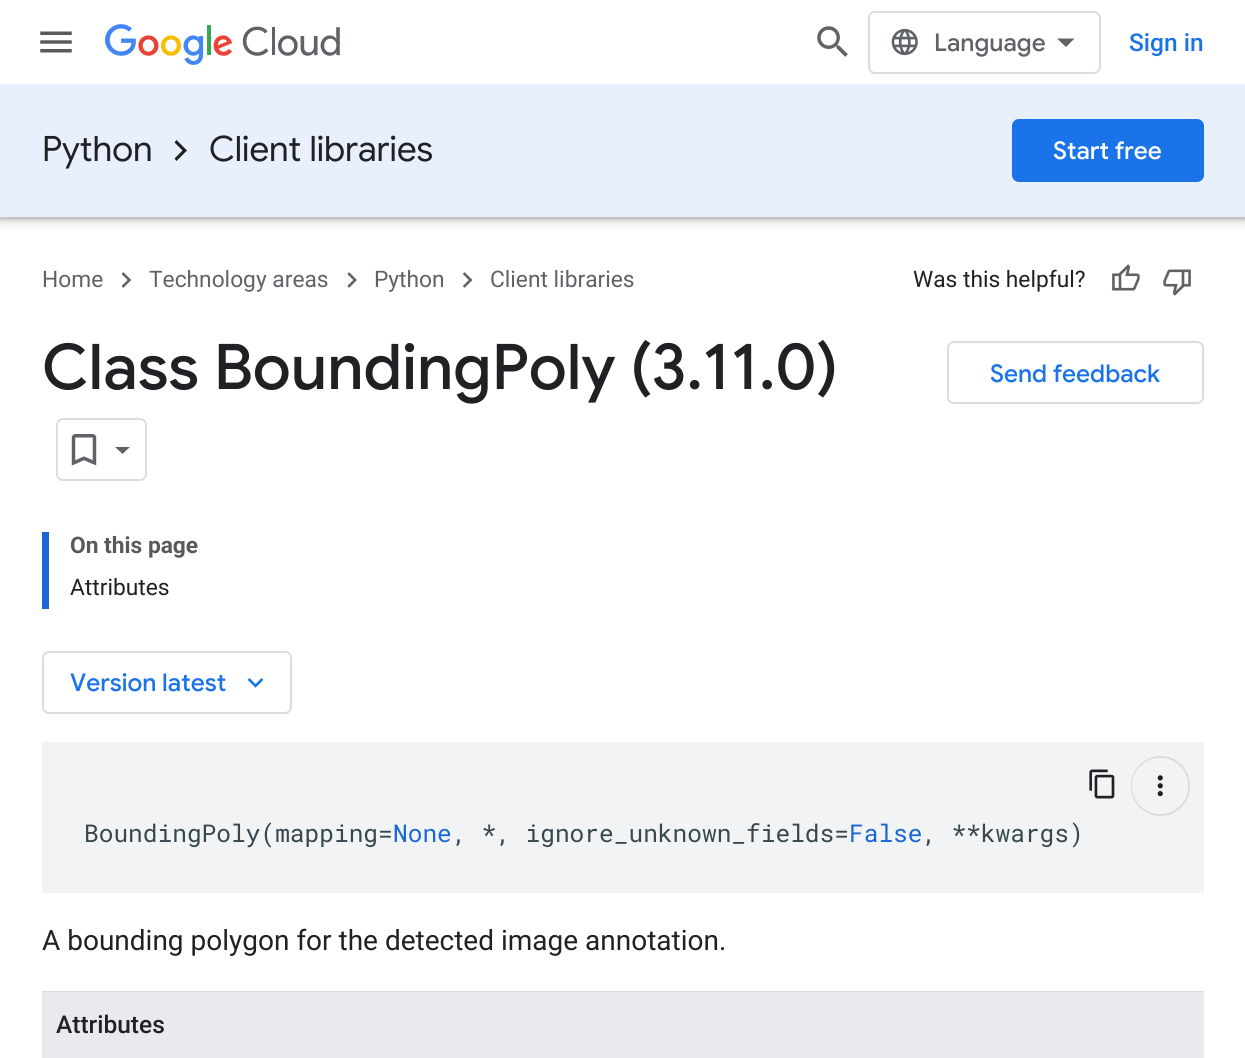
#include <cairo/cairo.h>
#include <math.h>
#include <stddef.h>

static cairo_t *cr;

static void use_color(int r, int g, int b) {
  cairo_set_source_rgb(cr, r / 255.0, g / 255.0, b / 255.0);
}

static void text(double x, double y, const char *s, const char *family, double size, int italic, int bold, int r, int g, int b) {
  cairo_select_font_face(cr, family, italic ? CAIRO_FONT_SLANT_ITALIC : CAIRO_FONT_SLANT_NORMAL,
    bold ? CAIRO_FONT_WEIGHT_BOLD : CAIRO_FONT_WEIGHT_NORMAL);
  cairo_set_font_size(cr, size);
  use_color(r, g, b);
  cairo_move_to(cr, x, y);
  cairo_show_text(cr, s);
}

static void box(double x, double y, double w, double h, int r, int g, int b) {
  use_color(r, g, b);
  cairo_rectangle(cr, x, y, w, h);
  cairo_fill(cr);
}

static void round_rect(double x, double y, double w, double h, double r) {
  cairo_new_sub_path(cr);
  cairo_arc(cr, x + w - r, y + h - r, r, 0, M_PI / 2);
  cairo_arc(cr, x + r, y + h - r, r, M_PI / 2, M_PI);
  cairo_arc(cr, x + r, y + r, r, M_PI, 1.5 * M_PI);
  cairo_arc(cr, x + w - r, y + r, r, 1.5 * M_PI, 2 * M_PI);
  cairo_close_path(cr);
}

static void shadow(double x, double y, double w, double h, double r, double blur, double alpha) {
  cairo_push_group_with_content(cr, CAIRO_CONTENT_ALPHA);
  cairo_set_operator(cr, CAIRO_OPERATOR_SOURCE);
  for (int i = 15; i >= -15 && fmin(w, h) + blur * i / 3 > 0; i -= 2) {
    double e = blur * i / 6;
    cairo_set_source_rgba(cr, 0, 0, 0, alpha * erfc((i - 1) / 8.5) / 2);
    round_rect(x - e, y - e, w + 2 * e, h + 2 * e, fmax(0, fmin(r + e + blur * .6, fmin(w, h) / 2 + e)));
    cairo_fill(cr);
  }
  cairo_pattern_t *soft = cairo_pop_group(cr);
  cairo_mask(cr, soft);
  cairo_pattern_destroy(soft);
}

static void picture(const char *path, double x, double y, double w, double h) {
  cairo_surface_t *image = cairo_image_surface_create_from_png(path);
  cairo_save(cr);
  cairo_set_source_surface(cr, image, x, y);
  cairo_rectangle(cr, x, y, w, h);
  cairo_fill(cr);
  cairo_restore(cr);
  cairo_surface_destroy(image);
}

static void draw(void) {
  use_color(255, 255, 255);
  cairo_paint(cr);
  use_color(60, 64, 67);
  shadow(-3, 84, 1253, 140, 0, 5, 0.15);
  shadow(0, 86, 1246, 133, 0, 2, 0.3);
  box(0, 77, 1245, 7, 255, 255, 255);
  picture("img_01.png", 40, 31, 32, 22);
  picture("img_02.png", 105, 24, 235, 41);
  picture("img_03.png", 817, 26, 31, 31);
  round_rect(869, 12, 231, 61, 6);
  use_color(218, 220, 224);
  cairo_stroke(cr);
  picture("img_04.png", 891, 28, 27, 28);
  use_color(95, 99, 104);
  cairo_new_path(cr);
  cairo_move_to(cr, 1066, 47);
  cairo_line_to(cr, 1057, 38.5);
  cairo_line_to(cr, 1074.5, 38.5);
  cairo_close_path(cr);
  cairo_fill(cr);
  box(0, 84, 1245, 133, 232, 240, 254);
  use_color(32, 33, 36);
  cairo_new_path(cr);
  cairo_move_to(cr, 176.5, 140);
  cairo_line_to(cr, 187, 150.5);
  cairo_line_to(cr, 176.5, 161);
  cairo_line_to(cr, 174.5, 158.5);
  cairo_line_to(cr, 182.5, 150.5);
  cairo_line_to(cr, 174.5, 142.5);
  cairo_close_path(cr);
  cairo_fill(cr);
  use_color(26, 115, 232);
  round_rect(1012, 119, 192, 63, 7);
  cairo_fill(cr);
  picture("img_05.png", 121, 272, 11, 16);
  picture("img_06.png", 347, 272, 10, 16);
  picture("img_07.png", 462, 272, 11, 16);
  picture("img_08.png", 1112, 264, 28, 27);
  picture("img_09.png", 1163, 269, 28, 27);
  round_rect(57, 419, 89, 61, 6);
  use_color(218, 220, 224);
  cairo_stroke(cr);
  picture("img_10.png", 71, 434, 26, 32);
  use_color(95, 99, 104);
  cairo_new_path(cr);
  cairo_move_to(cr, 115, 447);
  cairo_line_to(cr, 130, 447);
  cairo_line_to(cr, 122.5, 454);
  cairo_close_path(cr);
  cairo_fill(cr);
  round_rect(948, 342, 255, 61, 6);
  use_color(218, 220, 224);
  cairo_stroke(cr);
  box(42, 532, 7, 77, 25, 103, 210);
  round_rect(43, 652, 248, 61, 6);
  use_color(218, 220, 224);
  cairo_stroke(cr);
  picture("img_11.png", 247, 678, 17, 10);
  box(42, 742, 1162, 151, 241, 243, 244);
  picture("img_12.png", 1089, 769, 26, 30);
  round_rect(1132, 757, 57, 58, 28.5);
  use_color(218, 220, 224);
  cairo_stroke(cr);
  use_color(241, 243, 244);
  cairo_arc(cr, 1160, 786, 28, 0, 2 * M_PI);
  cairo_fill(cr);
  picture("img_13.png", 1157, 775, 6, 22);
  box(42, 991, 1162, 1, 218, 220, 224);
  box(42, 992, 1162, 66, 232, 234, 237);
  text(934, 51, "Language", "Google Sans Medium", 24.5, 0, 0, 95, 99, 104);
  text(1129, 51, "Sign in", "Roboto Medium", 24.5, 0, 0, 26, 115, 232);
  text(42, 161, "Python", "Google Sans", 35, 0, 0, 32, 33, 36);
  text(209, 161, "Client libraries", "Google Sans", 35, 0, 0, 32, 33, 36);
  text(1053, 159, "Start free", "Google Sans Medium", 24.5, 0, 0, 255, 255, 255);
  text(42, 287, "Home", "Roboto", 22.75, 0, 0, 95, 99, 104);
  text(149, 287, "Technology areas", "Roboto", 22.75, 0, 0, 95, 99, 104);
  text(374, 287, "Python", "Roboto", 22.75, 0, 0, 95, 99, 104);
  text(490, 287, "Client libraries", "Roboto", 22.75, 0, 0, 95, 99, 104);
  text(913, 287, "Was this helpful?", "Roboto", 22.75, 0, 0, 32, 33, 36);
  text(42, 389, "Class BoundingPoly (3.11.0)", "Google Sans Medium", 63, 0, 0, 32, 33, 36);
  text(990, 382, "Send feedback", "Google Sans Medium", 24.5, 0, 0, 26, 115, 232);
  text(70, 553, "On this page", "Roboto", 22.75, 0, 1, 89, 89, 89);
  text(70, 595, "Attributes", "Roboto", 22.75, 0, 0, 32, 33, 36);
  text(70, 691, "Version latest", "Google Sans Medium", 24.5, 0, 0, 26, 115, 232);
  text(84, 842, "BoundingPoly(mapping=", "Roboto Mono", 24.5, 0, 0, 55, 71, 79);
  text(393, 842, "None", "Roboto Mono", 24.5, 0, 0, 25, 103, 210);
  text(452, 842, ", *, ignore_unknown_fields=", "Roboto Mono", 24.5, 0, 0, 55, 71, 79);
  text(849, 842, "False", "Roboto Mono", 24.5, 0, 0, 25, 103, 210);
  text(922, 842, ", **kwargs)", "Roboto Mono", 24.5, 0, 0, 55, 71, 79);
  text(42, 950, "A bounding polygon for the detected image annotation.", "Roboto", 28, 0, 0, 32, 33, 36);
  text(56, 1033, "Attributes", "Roboto Medium", 24.5, 0, 0, 32, 33, 36);
}

int main(void) {
  cairo_surface_t *surface = cairo_image_surface_create(CAIRO_FORMAT_RGB24, 1245, 1058);
  cr = cairo_create(surface);
  cairo_font_options_t *options = cairo_font_options_create();
  cairo_font_options_set_hint_metrics(options, CAIRO_HINT_METRICS_OFF);
  cairo_font_options_set_hint_style(options, CAIRO_HINT_STYLE_NONE);
  cairo_set_font_options(cr, options);
  cairo_set_miter_limit(cr, 4);
  draw();
  cairo_surface_write_to_png(surface, "out.png");
  cairo_font_options_destroy(options);
  cairo_destroy(cr);
  cairo_surface_destroy(surface);
  return 0;
}
